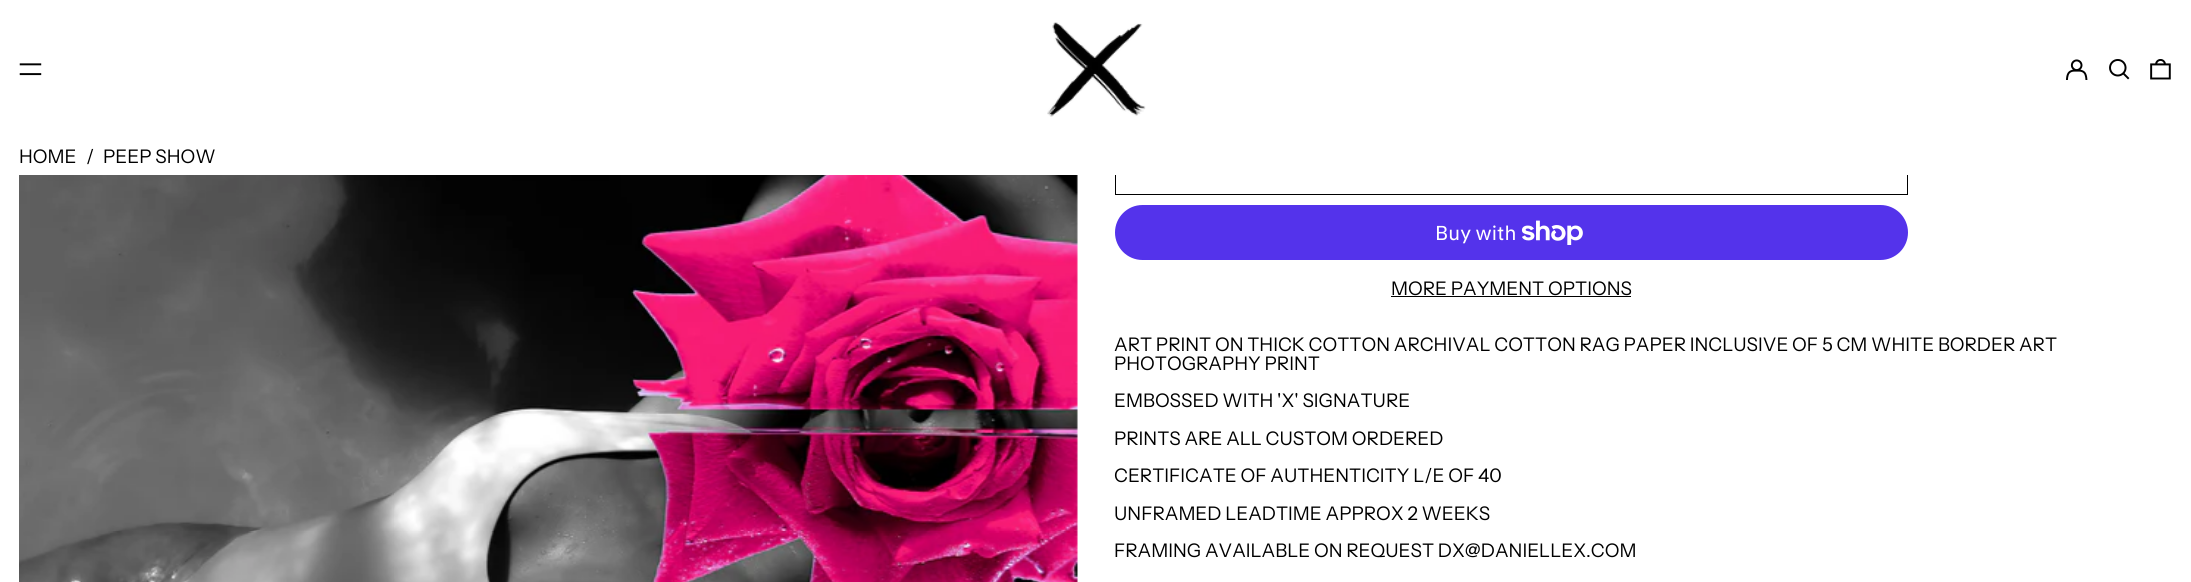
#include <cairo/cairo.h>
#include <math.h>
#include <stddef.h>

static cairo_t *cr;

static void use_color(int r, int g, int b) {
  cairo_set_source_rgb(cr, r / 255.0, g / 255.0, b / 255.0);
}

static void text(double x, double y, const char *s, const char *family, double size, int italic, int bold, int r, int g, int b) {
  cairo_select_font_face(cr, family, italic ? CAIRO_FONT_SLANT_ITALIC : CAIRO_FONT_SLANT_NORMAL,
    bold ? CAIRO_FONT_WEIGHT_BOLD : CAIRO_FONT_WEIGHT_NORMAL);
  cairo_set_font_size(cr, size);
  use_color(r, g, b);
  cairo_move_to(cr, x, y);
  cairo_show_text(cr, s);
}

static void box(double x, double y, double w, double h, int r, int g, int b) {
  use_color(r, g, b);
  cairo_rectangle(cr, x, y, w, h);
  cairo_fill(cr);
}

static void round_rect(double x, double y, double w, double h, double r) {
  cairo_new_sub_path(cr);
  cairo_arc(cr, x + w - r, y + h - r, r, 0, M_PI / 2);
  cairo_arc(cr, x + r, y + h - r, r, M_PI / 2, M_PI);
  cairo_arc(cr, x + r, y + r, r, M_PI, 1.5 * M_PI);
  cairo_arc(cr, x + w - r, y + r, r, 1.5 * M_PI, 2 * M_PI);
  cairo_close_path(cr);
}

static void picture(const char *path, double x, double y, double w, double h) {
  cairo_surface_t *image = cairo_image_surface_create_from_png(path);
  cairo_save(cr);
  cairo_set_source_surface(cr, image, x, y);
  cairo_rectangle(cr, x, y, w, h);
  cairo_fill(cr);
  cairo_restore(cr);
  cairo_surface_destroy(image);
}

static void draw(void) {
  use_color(255, 255, 255);
  cairo_paint(cr);
  picture("img_01.png", 19, 63, 23, 13);
  picture("img_02.png", 1047, 22, 99, 95);
  picture("img_03.png", 2066, 59, 22, 21);
  picture("img_04.png", 2109, 59, 21, 21);
  picture("img_05.png", 2150, 59, 21, 21);
  cairo_rectangle(cr, 1115.5, 140.5, 792, 54);
  use_color(0, 0, 0);
  cairo_set_line_width(cr, 1);
  cairo_stroke(cr);
  box(1115, 140, 793, 35, 255, 255, 255);
  picture("img_06.png", 19, 175, 1059, 407);
  use_color(84, 51, 235);
  round_rect(1115, 205, 793, 55, 27.5);
  cairo_fill(cr);
  picture("img_07.png", 1521, 220, 62, 25);
  box(1391, 296, 240, 1, 0, 0, 0);
  text(19, 163, "HOME", "Instrument Sans", 18.75, 0, 0, 0, 0, 0);
  text(86, 163, "/", "Instrument Sans", 18.75, 0, 0, 0, 0, 0);
  text(103, 163, "PEEP SHOW", "Instrument Sans", 18.75, 0, 0, 0, 0, 0);
  text(1435, 240, "Buy with", "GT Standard", 20, 0, 0, 255, 255, 255);
  text(1391, 295, "MORE PAYMENT OPTIONS", "Instrument Sans", 18.75, 0, 0, 0, 0, 0);
  text(1114, 351, "ART PRINT ON THICK COTTON ARCHIVAL COTTON RAG PAPER INCLUSIVE OF 5 CM WHITE BORDER ART", "Instrument Sans", 18.75, 0, 0, 0, 0, 0);
  text(1114, 370, "PHOTOGRAPHY PRINT", "Instrument Sans", 18.75, 0, 0, 0, 0, 0);
  text(1114, 407, "EMBOSSED WITH 'X' SIGNATURE", "Instrument Sans", 18.75, 0, 0, 0, 0, 0);
  text(1114, 445, "PRINTS ARE ALL CUSTOM ORDERED", "Instrument Sans", 18.75, 0, 0, 0, 0, 0);
  text(1114, 482, "CERTIFICATE OF AUTHENTICITY L/E OF 40", "Instrument Sans", 18.75, 0, 0, 0, 0, 0);
  text(1114, 520, "UNFRAMED LEADTIME APPROX 2 WEEKS", "Instrument Sans", 18.75, 0, 0, 0, 0, 0);
  text(1114, 557, "FRAMING AVAILABLE ON REQUEST DX@DANIELLEX.COM", "Instrument Sans", 18.75, 0, 0, 0, 0, 0);
}

int main(void) {
  cairo_surface_t *surface = cairo_image_surface_create(CAIRO_FORMAT_RGB24, 2191, 582);
  cr = cairo_create(surface);
  cairo_font_options_t *options = cairo_font_options_create();
  cairo_font_options_set_hint_metrics(options, CAIRO_HINT_METRICS_OFF);
  cairo_font_options_set_hint_style(options, CAIRO_HINT_STYLE_NONE);
  cairo_set_font_options(cr, options);
  cairo_set_miter_limit(cr, 4);
  draw();
  cairo_surface_write_to_png(surface, "out.png");
  cairo_font_options_destroy(options);
  cairo_destroy(cr);
  cairo_surface_destroy(surface);
  return 0;
}
